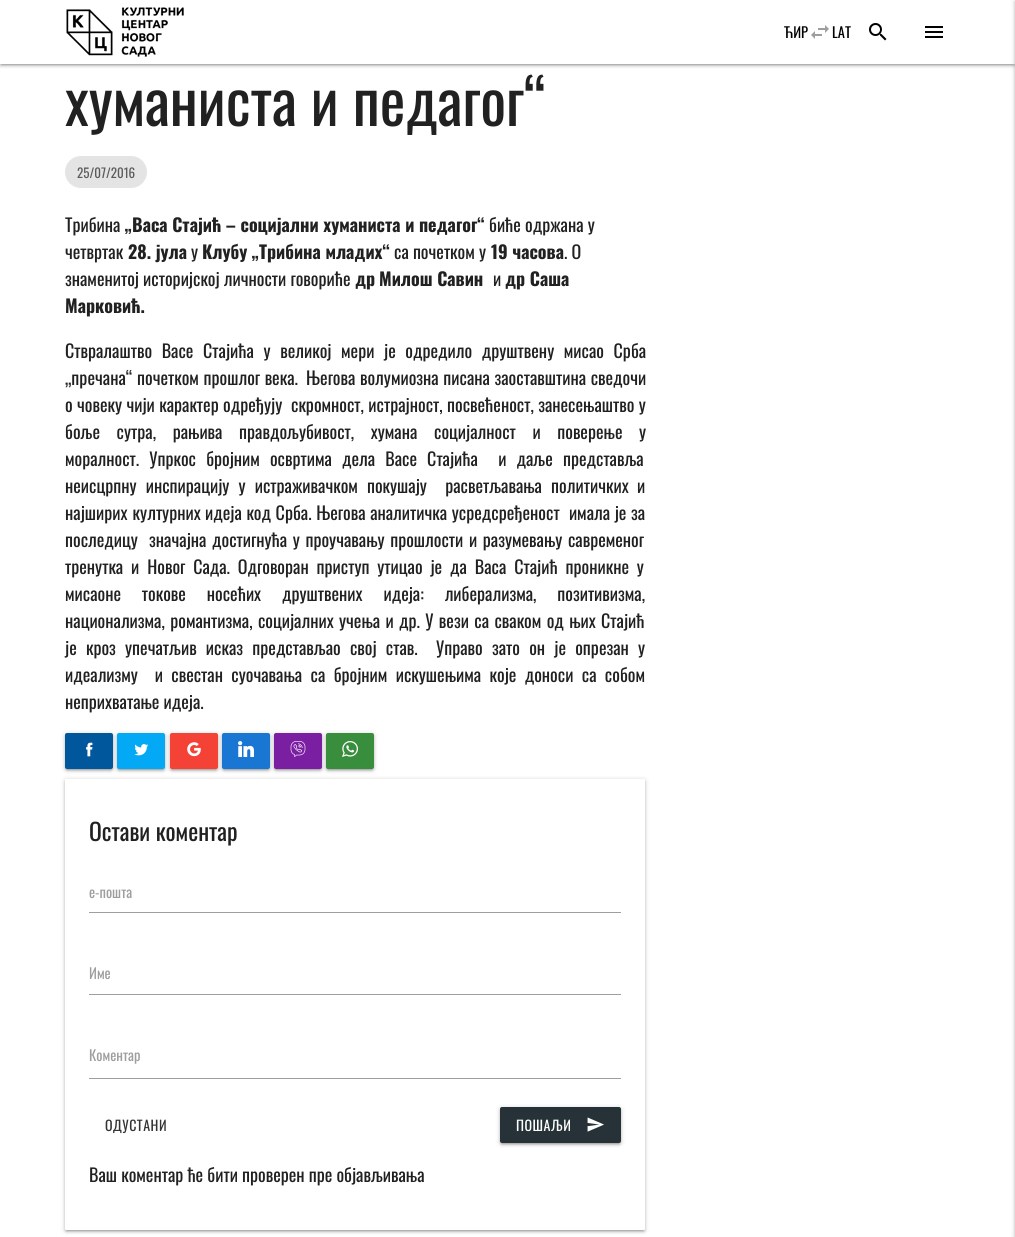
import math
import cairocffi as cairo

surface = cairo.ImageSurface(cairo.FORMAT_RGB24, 1015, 1237)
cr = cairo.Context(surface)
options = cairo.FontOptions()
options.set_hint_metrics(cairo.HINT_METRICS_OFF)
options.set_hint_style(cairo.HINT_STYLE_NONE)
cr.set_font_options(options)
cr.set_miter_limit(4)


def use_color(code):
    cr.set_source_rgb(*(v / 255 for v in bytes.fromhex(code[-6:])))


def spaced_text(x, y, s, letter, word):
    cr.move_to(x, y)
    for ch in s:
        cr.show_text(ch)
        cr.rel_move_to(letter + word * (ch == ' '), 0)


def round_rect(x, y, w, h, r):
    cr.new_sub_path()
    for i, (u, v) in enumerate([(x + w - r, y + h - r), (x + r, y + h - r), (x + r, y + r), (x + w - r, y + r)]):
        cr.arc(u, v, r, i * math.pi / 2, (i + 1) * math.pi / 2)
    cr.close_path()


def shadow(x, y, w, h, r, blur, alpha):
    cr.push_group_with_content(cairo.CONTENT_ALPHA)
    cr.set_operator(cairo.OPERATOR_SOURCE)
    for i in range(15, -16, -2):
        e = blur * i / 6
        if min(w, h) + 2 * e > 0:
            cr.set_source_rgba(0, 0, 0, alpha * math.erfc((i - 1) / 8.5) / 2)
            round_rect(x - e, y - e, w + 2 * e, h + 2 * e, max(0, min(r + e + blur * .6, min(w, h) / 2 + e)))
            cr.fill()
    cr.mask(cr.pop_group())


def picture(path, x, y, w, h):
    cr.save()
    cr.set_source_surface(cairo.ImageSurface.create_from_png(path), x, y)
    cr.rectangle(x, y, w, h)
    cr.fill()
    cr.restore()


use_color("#ffffff")
cr.paint()
use_color("#000000")
shadow(0, 1, 1015, 64, 0, 2.5, 0.2)
shadow(2, 5, 1011, 60, 0, 0.5, 0.12)
shadow(0, 2, 1015, 64, 0, 1, 0.14)
use_color("#ffffff")
cr.rectangle(0, 0, 1015, 64)
cr.fill()
picture("img1.png", 66, 7, 118, 50)
cr.select_font_face("Oswald")
cr.set_font_size(14.5)
use_color("#000000")
cr.move_to(784, 38)
cr.show_text("ЋИР")
picture("img2.png", 811, 25, 18, 14)
cr.move_to(832, 38)
cr.show_text("LAT")
picture("img3.png", 869, 23, 18, 18)
picture("img4.png", 925, 26, 18, 12)
use_color("#000000")
shadow(1015, 1, 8, 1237, 0, 2.5, 0.2)
shadow(1015, 2, 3, 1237, 0, 1, 0.14)
cr.set_font_size(61)
use_color("#212121")
cr.move_to(65, 126)
cr.show_text("хуманиста и педагог“")
use_color("#e4e4e4")
round_rect(65, 156, 82, 32, 16)
cr.fill()
cr.set_font_size(13)
use_color("#5b5b5b")
cr.move_to(77, 178)
cr.show_text("25/07/2016")
cr.set_font_size(18)
use_color("#212121")
cr.move_to(65, 232)
cr.show_text("Трибина")
cr.select_font_face("Oswald", cairo.FONT_SLANT_NORMAL, cairo.FONT_WEIGHT_BOLD)
cr.move_to(125, 232)
cr.show_text("„Васа Стајић – социјални хуманиста и педагог“")
cr.select_font_face("Oswald")
cr.move_to(489, 232)
cr.show_text("биће одржана у")
cr.move_to(65, 259)
cr.show_text("четвртак")
cr.select_font_face("Oswald", cairo.FONT_SLANT_NORMAL, cairo.FONT_WEIGHT_BOLD)
cr.move_to(128, 259)
cr.show_text("28. јула")
cr.select_font_face("Oswald")
cr.move_to(191, 259)
cr.show_text("у")
cr.select_font_face("Oswald", cairo.FONT_SLANT_NORMAL, cairo.FONT_WEIGHT_BOLD)
cr.move_to(202, 259)
cr.show_text("Клубу „Трибина младих“")
cr.select_font_face("Oswald")
cr.move_to(394, 259)
cr.show_text("са почетком у")
cr.select_font_face("Oswald", cairo.FONT_SLANT_NORMAL, cairo.FONT_WEIGHT_BOLD)
cr.move_to(491, 259)
cr.show_text("19 часова")
cr.select_font_face("Oswald")
cr.move_to(564, 259)
cr.show_text(". О")
cr.move_to(65, 286)
cr.show_text("знаменитој историјској личности говориће")
cr.select_font_face("Oswald", cairo.FONT_SLANT_NORMAL, cairo.FONT_WEIGHT_BOLD)
cr.move_to(355, 286)
cr.show_text("др")
cr.move_to(379, 286)
cr.show_text("Милош Савин")
cr.select_font_face("Oswald")
cr.move_to(493, 286)
cr.show_text("и")
cr.select_font_face("Oswald", cairo.FONT_SLANT_NORMAL, cairo.FONT_WEIGHT_BOLD)
cr.move_to(505, 286)
cr.show_text("др Саша")
cr.move_to(65, 313)
cr.show_text("Марковић.")
cr.select_font_face("Oswald")
spaced_text(65, 358, "Ствралаштво Васе Стајића у великој мери je одредило друштвену мисао Срба", 0, 5.5)
cr.move_to(65, 385)
cr.show_text("„пречана“")
spaced_text(137, 385, "почетком прошлог века.", 0, 0.5)
spaced_text(306, 385, "Његова волумиозна писана заоставштина сведочи", 0, 0.5)
spaced_text(65, 412, "о човеку чији карактер одређују  скромност, истрајност, посвећеност, занесењаштво у", 0, 0.25)
spaced_text(65, 439, "боље сутра, рањива правдољубивост, хумана социјалност и поверење у", 0, 12.5)
spaced_text(65, 466, "моралност. Упркос бројним освртима дела Васе Стајића  и даље представља", 0, 6)
spaced_text(65, 493, "неисцрпну инспирацију у истраживачком покушају  расветљавања политичких", 0, 5)
cr.move_to(637, 493)
cr.show_text("и")
spaced_text(65, 520, "најширих културних", 0, 1)
spaced_text(205, 520, "идеја код Срба. Његова аналитичка усредсређеност  имала је за", 0, 0.5)
spaced_text(65, 547, "последицу  значајна достигнућа у проучавању прошлости и разумевању савременог", 0, 1.5)
spaced_text(65, 574, "тренутка и Новог Сада. Одговоран приступ утицао је да Васа Стајић проникне у", 0, 3.75)
spaced_text(65, 601, "мисаоне токове носећих друштвених идеја: либерализма, позитивизма,", 0, 16.75)
spaced_text(65, 628, "национализма, романтизма, социјалних учења и др. У вези са сваком од њих Стајић", 0, 1.25)
spaced_text(65, 655, "је кроз упечатљив исказ представљао свој став.  Управо зато он је опрезан у", 0, 5.1)
spaced_text(65, 682, "идеализму  и свестан суочавања са бројним искушењима које доноси са собом", 0, 4.25)
cr.move_to(65, 709)
cr.show_text("неприхватање идеја.")
use_color("#000000")
shadow(65, 734, 48, 36, 2, 2.5, 0.2)
shadow(67, 738, 44, 32, 0, 0.5, 0.12)
shadow(65, 735, 48, 36, 2, 1, 0.14)
use_color("#01579b")
round_rect(65, 733, 48, 36, 2)
cr.fill()
picture("img5.png", 86, 742, 7, 15)
use_color("#000000")
shadow(117, 734, 48, 36, 2, 2.5, 0.2)
shadow(119, 738, 44, 32, 0, 0.5, 0.12)
shadow(117, 735, 48, 36, 2, 1, 0.14)
use_color("#03a9f4")
round_rect(117, 733, 48, 36, 2)
cr.fill()
picture("img6.png", 134, 744, 15, 12)
use_color("#000000")
shadow(170, 734, 48, 36, 2, 2.5, 0.2)
shadow(172, 738, 44, 32, 0, 0.5, 0.12)
shadow(170, 735, 48, 36, 2, 1, 0.14)
use_color("#f44336")
round_rect(170, 733, 48, 36, 2)
cr.fill()
picture("img7.png", 187, 742, 14, 15)
use_color("#000000")
shadow(222, 734, 48, 36, 2, 2.5, 0.2)
shadow(224, 738, 44, 32, 0, 0.5, 0.12)
shadow(222, 735, 48, 36, 2, 1, 0.14)
use_color("#1976d2")
round_rect(222, 733, 48, 36, 2)
cr.fill()
picture("img8.png", 238, 741, 16, 16)
use_color("#000000")
shadow(274, 734, 48, 36, 2, 2.5, 0.2)
shadow(276, 738, 44, 32, 0, 0.5, 0.12)
shadow(274, 735, 48, 36, 2, 1, 0.14)
use_color("#7b1fa2")
round_rect(274, 733, 48, 36, 2)
cr.fill()
picture("img9.png", 290, 741, 16, 16)
use_color("#000000")
shadow(326, 734, 48, 36, 2, 2.5, 0.2)
shadow(328, 738, 44, 32, 0, 0.5, 0.12)
shadow(326, 735, 48, 36, 2, 1, 0.14)
use_color("#388e3c")
round_rect(326, 733, 48, 36, 2)
cr.fill()
picture("img10.png", 342, 741, 16, 16)
use_color("#000000")
shadow(65, 780, 580, 451, 1, 2.5, 0.2)
shadow(67, 784, 576, 447, 0, 0.5, 0.12)
shadow(65, 781, 580, 451, 1, 1, 0.14)
use_color("#ffffff")
round_rect(65, 779, 580, 451, 1)
cr.fill()
cr.set_font_size(23.75)
use_color("#212121")
cr.move_to(89, 841)
cr.show_text("Остави коментар")
cr.set_font_size(14.5)
use_color("#9e9e9e")
cr.move_to(89, 898)
cr.show_text("е-пошта")
cr.rectangle(89, 912, 532, 1)
cr.fill()
cr.move_to(89, 979)
cr.show_text("Име")
cr.rectangle(89, 994, 532, 1)
cr.fill()
cr.move_to(89, 1061)
cr.show_text("Коментар")
cr.rectangle(89, 1078, 532, 1)
cr.fill()
cr.set_font_size(14)
use_color("#343434")
spaced_text(105, 1131, "ОДУСТАНИ", 0.5, 0)
use_color("#000000")
shadow(500, 1108, 121, 36, 2, 2.5, 0.2)
shadow(502, 1112, 117, 32, 0, 0.5, 0.12)
shadow(500, 1109, 121, 36, 2, 1, 0.14)
use_color("#263238")
round_rect(500, 1107, 121, 36, 2)
cr.fill()
use_color("#ffffff")
spaced_text(516, 1131, "ПОШАЉИ", 0.5, 0)
picture("img11.png", 587, 1117, 17, 15)
cr.set_font_size(18)
use_color("#212121")
cr.move_to(89, 1182)
cr.show_text("Ваш коментар ће бити проверен пре објављивања")
surface.write_to_png("result.png")
